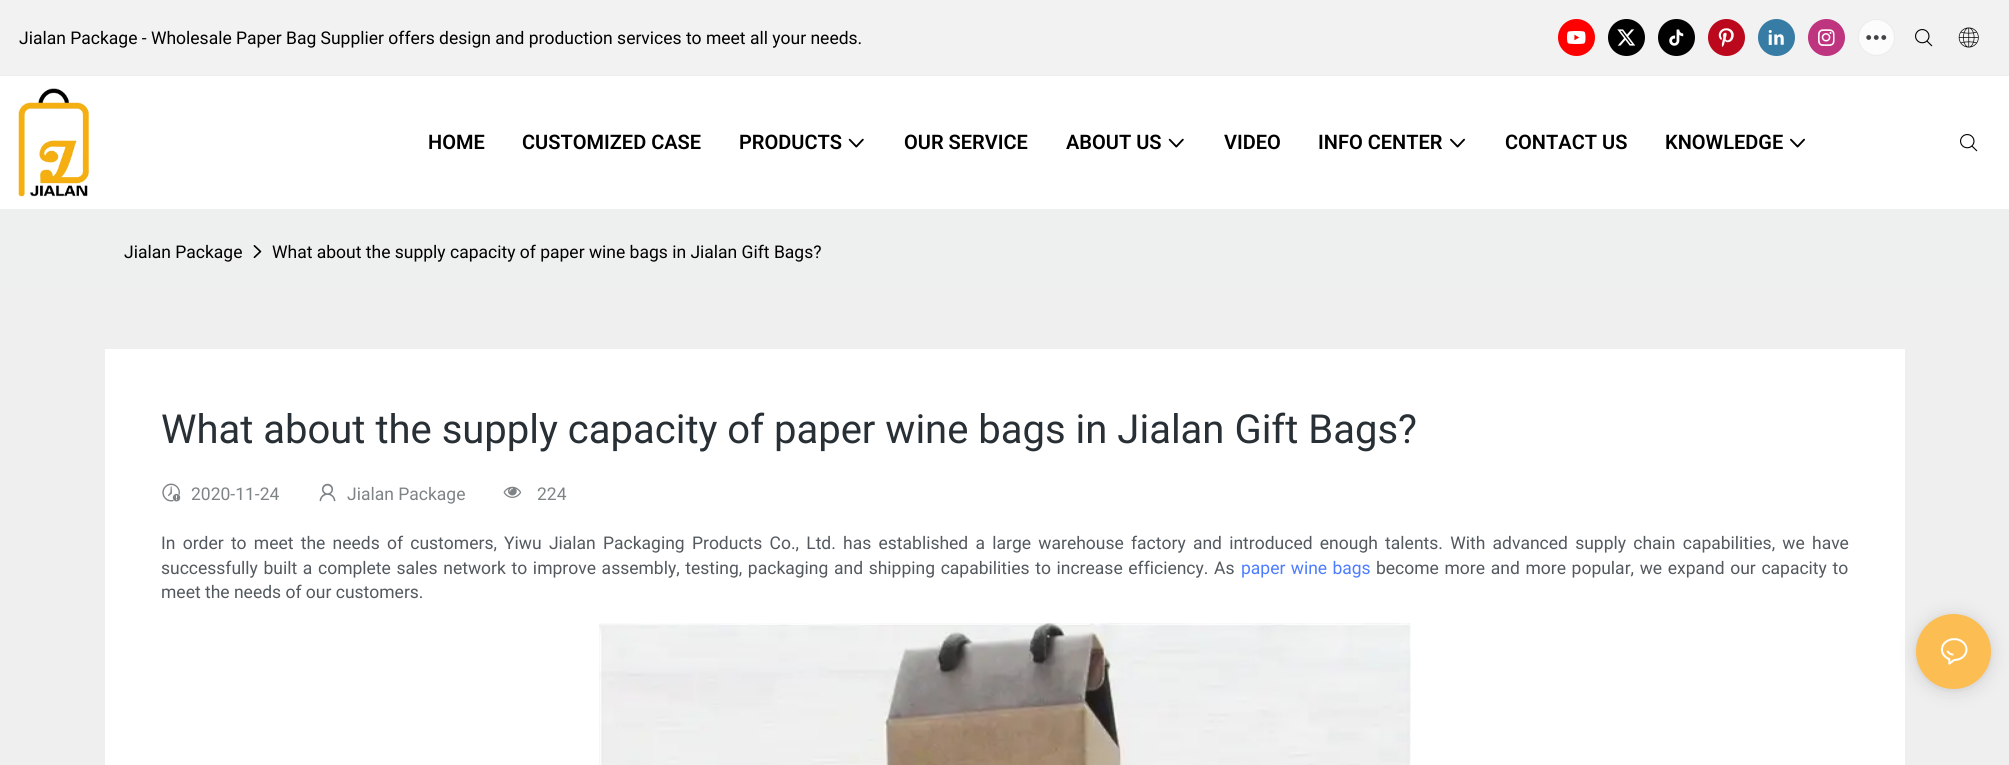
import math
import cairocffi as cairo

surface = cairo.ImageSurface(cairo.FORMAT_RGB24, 2009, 765)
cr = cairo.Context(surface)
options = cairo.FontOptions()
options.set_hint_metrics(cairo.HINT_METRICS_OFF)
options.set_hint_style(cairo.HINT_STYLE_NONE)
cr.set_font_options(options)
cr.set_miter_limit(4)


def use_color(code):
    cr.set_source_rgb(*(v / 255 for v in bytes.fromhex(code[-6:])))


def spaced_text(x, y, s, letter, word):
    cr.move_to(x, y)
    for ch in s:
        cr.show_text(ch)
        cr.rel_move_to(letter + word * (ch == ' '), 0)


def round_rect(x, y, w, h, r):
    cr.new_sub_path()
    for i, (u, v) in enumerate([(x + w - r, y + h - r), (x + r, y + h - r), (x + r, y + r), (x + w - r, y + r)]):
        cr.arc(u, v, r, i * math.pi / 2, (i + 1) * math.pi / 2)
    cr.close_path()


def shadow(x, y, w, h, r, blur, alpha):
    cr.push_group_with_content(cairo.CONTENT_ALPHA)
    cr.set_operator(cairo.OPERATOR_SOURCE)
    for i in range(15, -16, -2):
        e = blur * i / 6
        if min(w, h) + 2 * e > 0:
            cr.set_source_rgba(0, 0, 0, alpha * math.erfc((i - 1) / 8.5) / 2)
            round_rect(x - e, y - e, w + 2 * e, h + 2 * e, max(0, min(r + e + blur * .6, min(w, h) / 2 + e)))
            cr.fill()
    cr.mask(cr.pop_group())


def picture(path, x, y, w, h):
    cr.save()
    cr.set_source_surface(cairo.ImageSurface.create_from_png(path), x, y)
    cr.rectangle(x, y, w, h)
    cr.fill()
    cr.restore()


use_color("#ffffff")
cr.paint()
use_color("#f2f2f2")
cr.rectangle(0, 0, 2009, 75)
cr.fill()
use_color("#eeeeee")
cr.rectangle(0, 75, 2009, 1)
cr.fill()
cr.select_font_face("Roboto")
cr.set_font_size(17.5)
use_color("#000000")
cr.move_to(19, 44)
cr.show_text("Jialan Package - Wholesale Paper Bag Supplier offers design and production services to meet all your needs.")
use_color("#ff0000")
cr.new_path()
cr.arc(1576.5, 37.5, 18.5, 0, 2 * math.pi)
cr.fill()
picture("img1.png", 1567, 31, 19, 13)
use_color("#000000")
cr.arc(1626.5, 37.5, 18.5, 0, 2 * math.pi)
cr.fill()
picture("img2.png", 1617, 29, 19, 17)
use_color("#010101")
cr.arc(1676.5, 37.5, 18.5, 0, 2 * math.pi)
cr.fill()
picture("img3.png", 1669, 29, 15, 17)
use_color("#bc081c")
cr.arc(1726.5, 37.5, 18.5, 0, 2 * math.pi)
cr.fill()
picture("img4.png", 1718, 28, 16, 19)
use_color("#377ca5")
cr.arc(1776.5, 37.5, 18.5, 0, 2 * math.pi)
cr.fill()
picture("img5.png", 1768, 30, 16, 15)
use_color("#be347f")
cr.arc(1826.5, 37.5, 18.5, 0, 2 * math.pi)
cr.fill()
picture("img6.png", 1818, 29, 17, 17)
use_color("#fcfcfc")
cr.arc(1876.5, 37.5, 18, 0, 2 * math.pi)
cr.fill_preserve()
use_color("#ebebeb")
cr.set_line_width(1)
cr.stroke()
picture("img7.png", 1866, 35, 21, 5)
picture("img8.png", 1915, 29, 18, 18)
picture("img9.png", 1958, 27, 21, 21)
picture("img10.png", 18, 88, 71, 109)
cr.select_font_face("Roboto SemiBold")
cr.set_font_size(20)
use_color("#000000")
cr.move_to(428, 149)
cr.show_text("HOME")
cr.move_to(522, 149)
cr.show_text("CUSTOMIZED CASE")
cr.move_to(739, 149)
cr.show_text("PRODUCTS")
picture("img11.png", 848, 138, 16, 10)
cr.move_to(904, 149)
cr.show_text("OUR SERVICE")
cr.move_to(1066, 149)
cr.show_text("ABOUT US")
picture("img11.png", 1168, 138, 16, 10)
cr.move_to(1224, 149)
cr.show_text("VIDEO")
cr.move_to(1318, 149)
cr.show_text("INFO CENTER")
picture("img12.png", 1450, 138, 15, 10)
cr.move_to(1505, 149)
cr.show_text("CONTACT US")
cr.move_to(1665, 149)
cr.show_text("KNOWLEDGE")
picture("img12.png", 1790, 138, 15, 10)
picture("img13.png", 1960, 134, 18, 18)
use_color("#eeefef")
cr.rectangle(0, 209, 2009, 80)
cr.fill()
cr.select_font_face("Roboto")
cr.set_font_size(17.5)
use_color("#000000")
cr.move_to(124, 258)
cr.show_text("Jialan Package")
picture("img14.png", 253, 245, 9, 14)
cr.move_to(272, 258)
cr.show_text("What about the supply capacity of paper wine bags in Jialan Gift Bags?")
use_color("#efefef")
cr.rectangle(0, 289, 2009, 476)
cr.fill()
use_color("#ffffff")
cr.rectangle(105, 349, 1800, 416)
cr.fill()
cr.set_font_size(40)
use_color("#283036")
cr.move_to(161, 443)
cr.show_text("What about the supply capacity of paper wine bags in Jialan Gift Bags?")
picture("img15.png", 162, 483, 19, 19)
cr.set_font_size(17.5)
use_color("#7e8386")
cr.move_to(191, 500)
cr.show_text("2020-11-24")
picture("img16.png", 319, 483, 17, 19)
cr.move_to(347, 500)
cr.show_text("Jialan Package")
picture("img17.png", 503, 486, 19, 12)
cr.move_to(537, 500)
cr.show_text("224")
use_color("#53595e")
spaced_text(161, 549, "In order to meet the needs of customers, Yiwu Jialan Packaging Products Co., Ltd. has established a large warehouse factory and introduced enough talents. With advanced supply chain capabilities, we have", 0, 2.9)
spaced_text(161, 574, "successfully built a complete sales network to improve assembly, testing, packaging and shipping capabilities to increase efficiency. As", 0, 1.3)
use_color("#4d7cfe")
spaced_text(1241, 574, "paper wine bags", 0, 1)
use_color("#53595e")
spaced_text(1376, 574, "become more and more popular, we expand our capacity to", 0, 1.3)
cr.move_to(161, 598)
cr.show_text("meet the needs of our customers.")
picture("img18.png", 599, 623, 812, 142)
use_color("#000000")
shadow(1916, 616, 75, 75, 37.5, 10, 0.12)
shadow(1916, 615, 75, 75, 37.5, 2.5, 0.06)
use_color("#fcbe53")
cr.arc(1953.5, 651.5, 37.5, 0, 2 * math.pi)
cr.fill()
picture("img19.png", 1940, 638, 28, 27)
surface.write_to_png("result.png")
